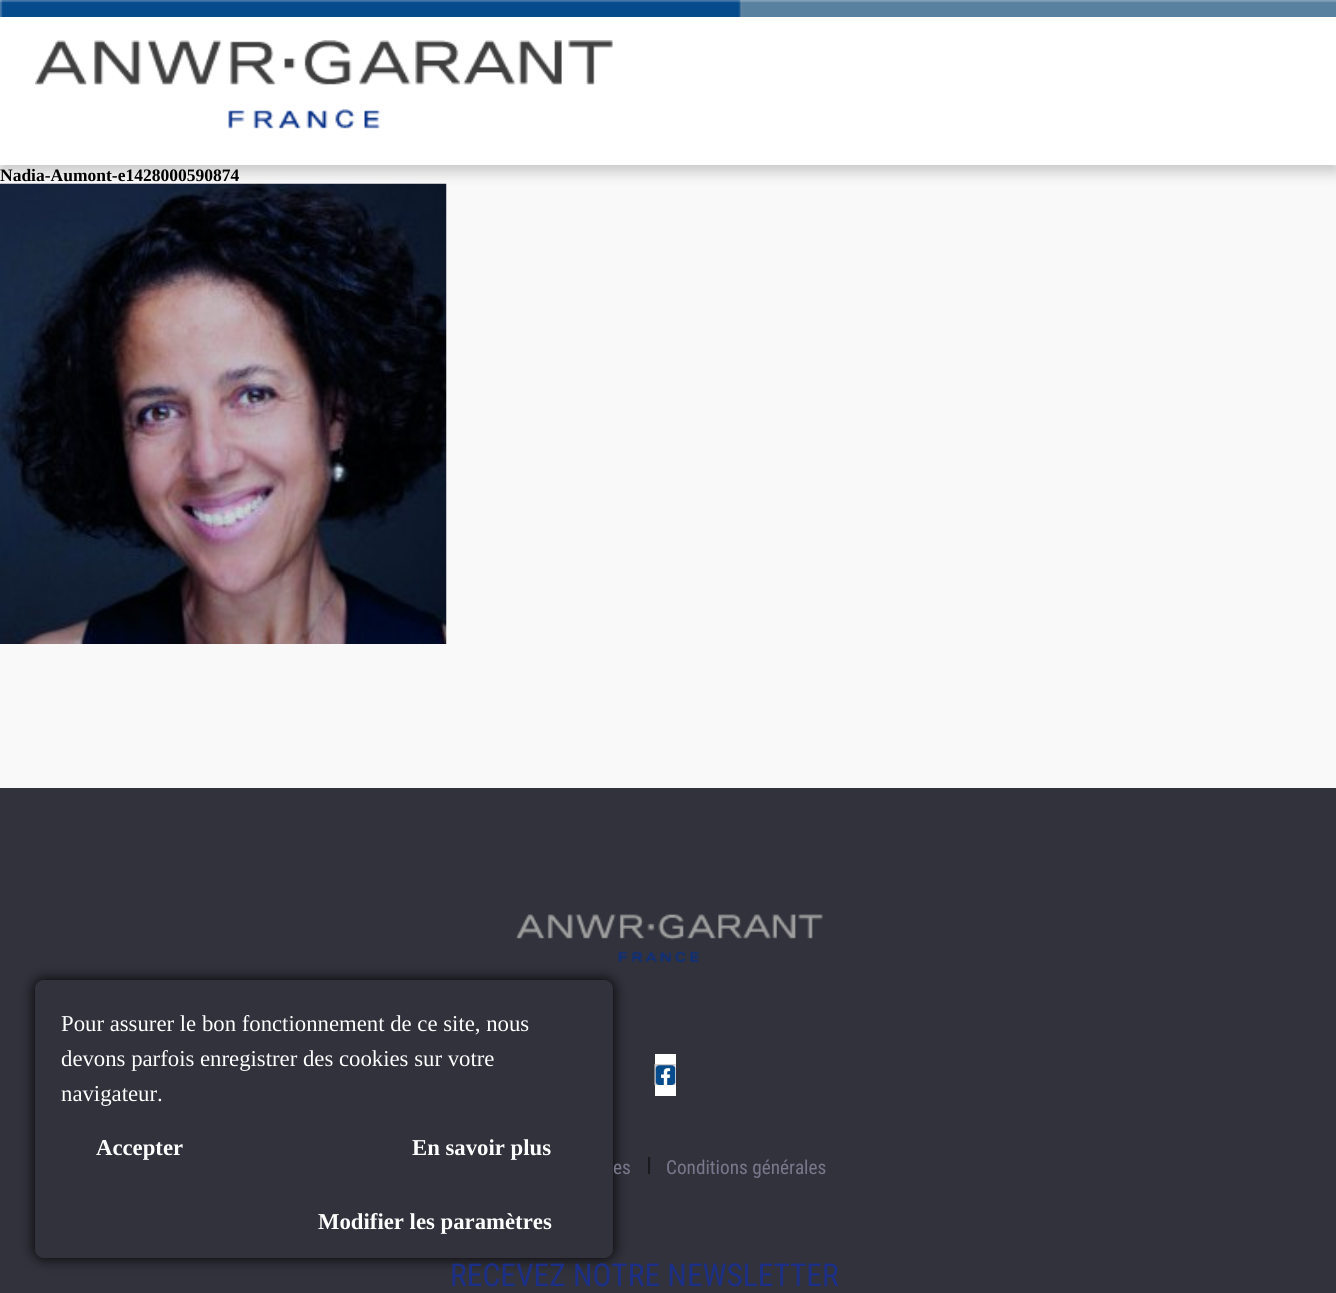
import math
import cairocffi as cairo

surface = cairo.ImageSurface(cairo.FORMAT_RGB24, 1336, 1293)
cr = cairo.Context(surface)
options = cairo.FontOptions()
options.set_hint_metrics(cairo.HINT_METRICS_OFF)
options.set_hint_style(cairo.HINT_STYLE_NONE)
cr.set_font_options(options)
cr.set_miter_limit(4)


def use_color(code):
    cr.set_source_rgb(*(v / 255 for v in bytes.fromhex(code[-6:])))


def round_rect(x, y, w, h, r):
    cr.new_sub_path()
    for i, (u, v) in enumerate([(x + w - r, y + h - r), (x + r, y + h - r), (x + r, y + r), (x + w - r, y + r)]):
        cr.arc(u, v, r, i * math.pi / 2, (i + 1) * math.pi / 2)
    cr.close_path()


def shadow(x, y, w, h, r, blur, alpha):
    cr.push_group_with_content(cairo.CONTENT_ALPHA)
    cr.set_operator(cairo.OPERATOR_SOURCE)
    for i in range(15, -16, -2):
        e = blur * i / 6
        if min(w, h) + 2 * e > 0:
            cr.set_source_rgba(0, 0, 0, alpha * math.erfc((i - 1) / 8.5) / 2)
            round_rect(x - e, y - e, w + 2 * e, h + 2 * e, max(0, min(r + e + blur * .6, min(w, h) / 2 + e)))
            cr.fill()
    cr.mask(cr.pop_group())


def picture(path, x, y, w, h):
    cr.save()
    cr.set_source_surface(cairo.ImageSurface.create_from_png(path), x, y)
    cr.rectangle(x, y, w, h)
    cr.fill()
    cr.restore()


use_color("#f9f9f9")
cr.paint()
picture("img3.png", 0, 183, 447, 461)
use_color("#000000")
shadow(0, 7, 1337, 165, 0, 7, 0.2)
use_color("#ffffff")
cr.rectangle(0, 0, 1336, 165)
cr.fill()
picture("img1.png", 35, 40, 578, 89)
picture("img2.png", 0, 0, 1336, 17)
cr.select_font_face("Liberation Serif", cairo.FONT_SLANT_NORMAL, cairo.FONT_WEIGHT_BOLD)
cr.set_font_size(17.5)
use_color("#000000")
cr.move_to(0, 181)
cr.show_text("Nadia-Aumont-e1428000590874")
use_color("#32323c")
cr.rectangle(0, 788, 1336, 505)
cr.fill()
picture("img4.png", 515, 914, 308, 49)
use_color("#000000")
shadow(35, 980, 578, 278, 9, 7, 1)
use_color("#32323c")
round_rect(35, 980, 578, 278, 9)
cr.fill()
cr.select_font_face("Liberation Serif")
cr.set_font_size(22.75)
use_color("#ffffff")
cr.move_to(61, 1031)
cr.show_text("Pour assurer le bon fonctionnement de ce site, nous")
cr.move_to(61, 1066)
cr.show_text("devons parfois enregistrer des cookies sur votre")
cr.move_to(61, 1101)
cr.show_text("navigateur.")
cr.select_font_face("Liberation Serif", cairo.FONT_SLANT_NORMAL, cairo.FONT_WEIGHT_BOLD)
cr.move_to(96, 1155)
cr.show_text("Accepter")
cr.move_to(412, 1155)
cr.show_text("En savoir plus")
cr.move_to(318, 1229)
cr.show_text("Modifier les paramètres")
cr.rectangle(655, 1054, 21, 42)
cr.fill()
picture("img5.png", 654, 1064, 22, 21)
cr.select_font_face("Roboto Condensed")
cr.set_font_size(19.25)
use_color("#78788c")
cr.move_to(613, 1174)
cr.show_text("es")
cr.set_font_size(24)
use_color("#19191e")
cr.move_to(646, 1174)
cr.show_text("I")
cr.set_font_size(19.25)
use_color("#78788c")
cr.move_to(666, 1174)
cr.show_text("Conditions générales")
cr.set_font_size(31.5)
use_color("#1b2f87")
cr.move_to(450, 1286)
cr.show_text("RECEVEZ NOTRE NEWSLETTER")
surface.write_to_png("result.png")
